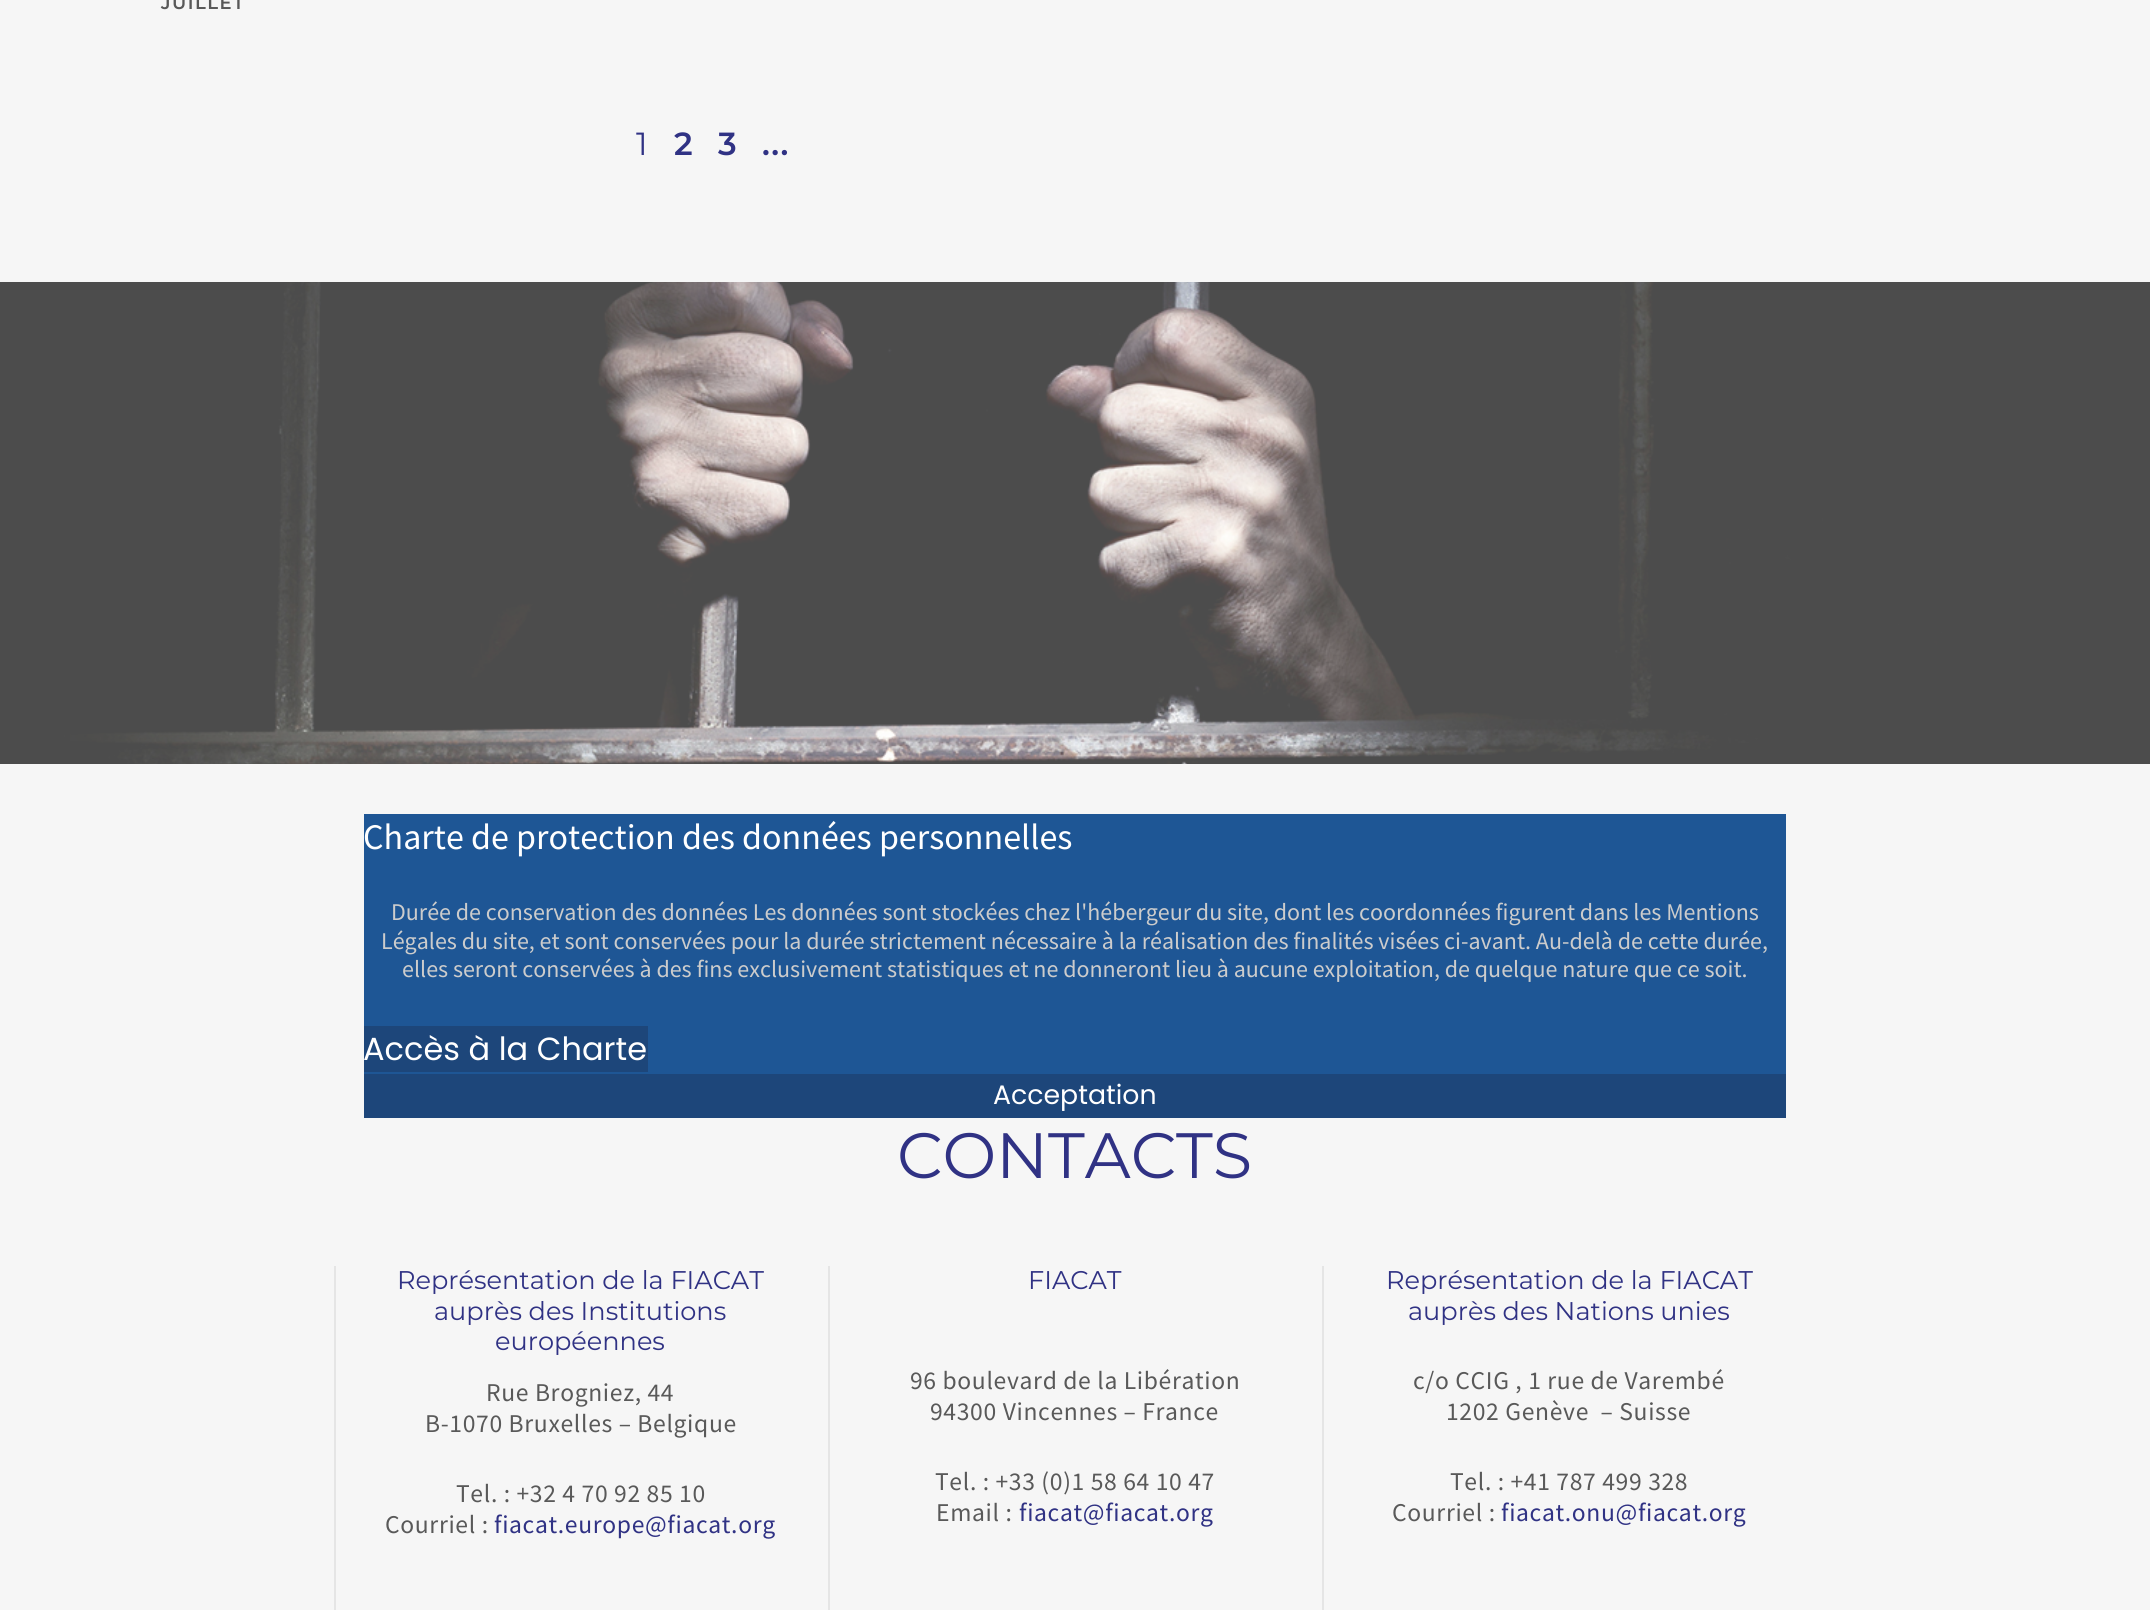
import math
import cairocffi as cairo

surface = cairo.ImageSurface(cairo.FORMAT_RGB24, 2150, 1610)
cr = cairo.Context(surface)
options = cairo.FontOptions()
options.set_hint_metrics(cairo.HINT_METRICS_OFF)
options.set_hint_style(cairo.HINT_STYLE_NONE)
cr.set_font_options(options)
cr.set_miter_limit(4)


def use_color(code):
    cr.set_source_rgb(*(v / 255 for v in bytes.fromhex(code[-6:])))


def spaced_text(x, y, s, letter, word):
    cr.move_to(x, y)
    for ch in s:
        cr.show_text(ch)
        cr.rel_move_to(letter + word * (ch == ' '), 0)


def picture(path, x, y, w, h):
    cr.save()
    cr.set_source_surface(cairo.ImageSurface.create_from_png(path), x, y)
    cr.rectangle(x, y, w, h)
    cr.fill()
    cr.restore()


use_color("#ffffff")
cr.paint()
use_color("#f6f6f6")
cr.rectangle(0, 0, 2150, 282)
cr.fill()
cr.select_font_face("Montserrat SemiBold")
cr.set_font_size(18)
use_color("#595959")
spaced_text(161, 9, "JUILLET", 1.5, 0)
cr.select_font_face("Montserrat")
cr.set_font_size(32)
use_color("#303284")
spaced_text(636, 155, "1", 1.5, 0)
cr.select_font_face("Montserrat SemiBold")
spaced_text(674, 155, "2", 1.5, 0)
spaced_text(718, 155, "3", 1.5, 0)
spaced_text(762, 155, "...", 1.5, 0)
picture("img1.png", 0, 282, 2150, 482)
use_color("#f6f6f6")
cr.rectangle(0, 764, 2150, 846)
cr.fill()
use_color("#1e5695")
cr.rectangle(364, 814, 1422, 260)
cr.fill()
cr.select_font_face("Source Sans Pro")
cr.set_font_size(36)
use_color("#ffffff")
cr.move_to(363, 849)
cr.show_text("Charte de protection des données personnelles")
cr.set_font_size(24)
use_color("#cccccc")
cr.move_to(391, 920)
cr.show_text("Durée de conservation des données Les données sont stockées chez l'hébergeur du site, dont les coordonnées figurent dans les Mentions")
cr.move_to(381, 949)
cr.show_text("Légales du site, et sont conservées pour la durée strictement nécessaire à la réalisation des finalités visées ci-avant. Au-delà de cette durée,")
cr.move_to(402, 977)
cr.show_text("elles seront conservées à des fins exclusivement statistiques et ne donneront lieu à aucune exploitation, de quelque nature que ce soit.")
use_color("#1d467a")
cr.rectangle(364, 1026, 284, 46)
cr.fill()
cr.select_font_face("Poppins")
cr.set_font_size(32)
use_color("#ffffff")
cr.move_to(363, 1060)
cr.show_text("Accès à la Charte")
use_color("#1d467a")
cr.rectangle(364, 1074, 1422, 44)
cr.fill()
cr.set_font_size(26.75)
use_color("#ffffff")
cr.move_to(993, 1104)
cr.show_text("Acceptation")
cr.select_font_face("Montserrat")
cr.set_font_size(64)
use_color("#303284")
cr.move_to(897, 1178)
cr.show_text("CONTACTS")
use_color("#e5e5e5")
cr.rectangle(334, 1266, 2, 344)
cr.fill()
cr.set_font_size(25.6)
use_color("#303284")
cr.move_to(397, 1289)
cr.show_text("Représentation de la FIACAT")
cr.move_to(434, 1320)
cr.show_text("auprès des Institutions")
cr.move_to(495, 1350)
cr.show_text("européennes")
cr.select_font_face("Source Sans Pro")
use_color("#595959")
spaced_text(486, 1401, "Rue Brogniez, 44", 0.65, 0)
spaced_text(425, 1432, "B-1070 Bruxelles – Belgique", 0.65, 0)
spaced_text(456, 1502, "Tel. : +32 4 70 92 85 10", 0.65, 0)
spaced_text(385, 1533, "Courriel :", 0.65, 0)
use_color("#303284")
spaced_text(494, 1533, "fiacat.europe@fiacat.org", 0.65, 0)
use_color("#e5e5e5")
cr.rectangle(828, 1266, 2, 344)
cr.fill()
cr.select_font_face("Montserrat")
use_color("#303284")
cr.move_to(1028, 1289)
cr.show_text("FIACAT")
cr.select_font_face("Source Sans Pro")
use_color("#595959")
spaced_text(910, 1389, "96 boulevard de la Libération", 0.65, 0)
spaced_text(930, 1420, "94300 Vincennes – France", 0.65, 0)
spaced_text(935, 1490, "Tel. : +33 (0)1 58 64 10 47", 0.65, 0)
spaced_text(936, 1521, "Email :", 0.65, 0)
use_color("#303284")
spaced_text(1019, 1521, "fiacat@fiacat.org", 0.65, 0)
use_color("#e5e5e5")
cr.rectangle(1322, 1266, 2, 344)
cr.fill()
cr.select_font_face("Montserrat")
use_color("#303284")
cr.move_to(1386, 1289)
cr.show_text("Représentation de la FIACAT")
cr.move_to(1408, 1320)
cr.show_text("auprès des Nations unies")
cr.select_font_face("Source Sans Pro")
use_color("#595959")
spaced_text(1413, 1389, "c/o CCIG , 1 rue de Varembé", 0.65, 0)
spaced_text(1446, 1420, "1202 Genève  – Suisse", 0.65, 0)
spaced_text(1450, 1490, "Tel. : +41 787 499 328", 0.65, 0)
spaced_text(1392, 1521, "Courriel :", 0.65, 0)
use_color("#303284")
spaced_text(1501, 1521, "fiacat.onu@fiacat.org", 0.65, 0)
surface.write_to_png("result.png")
